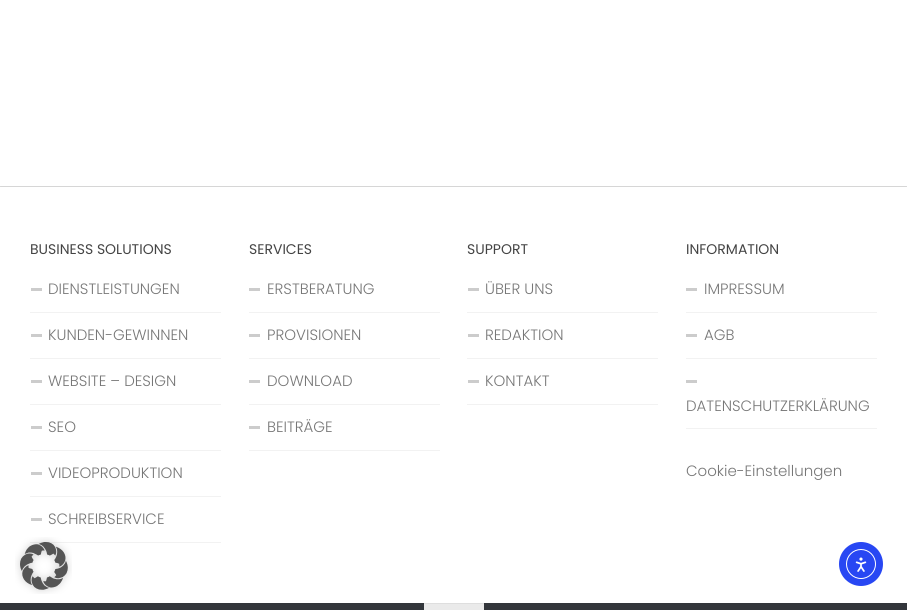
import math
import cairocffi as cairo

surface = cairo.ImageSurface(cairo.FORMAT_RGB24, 907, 610)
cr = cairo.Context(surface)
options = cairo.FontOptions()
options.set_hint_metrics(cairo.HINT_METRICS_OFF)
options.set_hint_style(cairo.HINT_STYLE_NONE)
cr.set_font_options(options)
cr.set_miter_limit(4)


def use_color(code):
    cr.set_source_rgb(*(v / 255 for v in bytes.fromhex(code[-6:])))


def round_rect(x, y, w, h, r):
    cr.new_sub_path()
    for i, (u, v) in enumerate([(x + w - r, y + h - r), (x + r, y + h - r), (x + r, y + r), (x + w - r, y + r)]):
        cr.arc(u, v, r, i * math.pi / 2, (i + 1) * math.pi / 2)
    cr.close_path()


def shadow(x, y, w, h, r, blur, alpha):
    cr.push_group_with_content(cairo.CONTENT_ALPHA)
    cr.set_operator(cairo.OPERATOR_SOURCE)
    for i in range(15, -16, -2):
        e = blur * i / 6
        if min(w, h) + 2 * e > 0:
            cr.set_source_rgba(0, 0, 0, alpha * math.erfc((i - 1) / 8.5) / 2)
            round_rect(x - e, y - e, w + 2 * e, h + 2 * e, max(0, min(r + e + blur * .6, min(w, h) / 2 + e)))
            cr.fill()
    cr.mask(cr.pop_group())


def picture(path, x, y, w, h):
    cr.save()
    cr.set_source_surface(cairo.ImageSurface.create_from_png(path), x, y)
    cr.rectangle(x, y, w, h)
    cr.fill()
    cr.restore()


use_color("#eaeaea")
cr.paint()
use_color("#000000")
shadow(0, -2, 907, 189, 0, 0.5, 0.1)
use_color("#ffffff")
cr.rectangle(0, 0, 907, 186)
cr.fill()
cr.rectangle(0, 187, 907, 416)
cr.fill()
cr.select_font_face("Poppins")
cr.set_font_size(14)
use_color("#444444")
cr.move_to(30, 254)
cr.show_text("BUSINESS SOLUTIONS")
use_color("#f2f2f2")
cr.rectangle(30, 312, 191, 1)
cr.fill()
use_color("#cccccc")
cr.rectangle(31, 288, 11, 3)
cr.fill()
cr.select_font_face("Poppins Light")
cr.set_font_size(15)
use_color("#777777")
cr.move_to(48, 294)
cr.show_text("DIENSTLEISTUNGEN")
use_color("#f2f2f2")
cr.rectangle(30, 358, 191, 1)
cr.fill()
use_color("#cccccc")
cr.rectangle(31, 334, 11, 3)
cr.fill()
use_color("#777777")
cr.move_to(48, 340)
cr.show_text("KUNDEN-GEWINNEN")
use_color("#f2f2f2")
cr.rectangle(30, 404, 191, 1)
cr.fill()
use_color("#cccccc")
cr.rectangle(31, 380, 11, 3)
cr.fill()
use_color("#777777")
cr.move_to(48, 386)
cr.show_text("WEBSITE – DESIGN")
use_color("#f2f2f2")
cr.rectangle(30, 450, 191, 1)
cr.fill()
use_color("#cccccc")
cr.rectangle(31, 426, 11, 3)
cr.fill()
use_color("#777777")
cr.move_to(48, 432)
cr.show_text("SEO")
use_color("#f2f2f2")
cr.rectangle(30, 496, 191, 1)
cr.fill()
use_color("#cccccc")
cr.rectangle(31, 472, 11, 3)
cr.fill()
use_color("#777777")
cr.move_to(48, 478)
cr.show_text("VIDEOPRODUKTION")
use_color("#f2f2f2")
cr.rectangle(30, 542, 191, 1)
cr.fill()
use_color("#cccccc")
cr.rectangle(31, 518, 11, 3)
cr.fill()
use_color("#777777")
cr.move_to(48, 524)
cr.show_text("SCHREIBSERVICE")
cr.select_font_face("Poppins")
cr.set_font_size(14)
use_color("#444444")
cr.move_to(249, 254)
cr.show_text("SERVICES")
use_color("#f2f2f2")
cr.rectangle(249, 312, 191, 1)
cr.fill()
use_color("#cccccc")
cr.rectangle(249, 288, 11, 3)
cr.fill()
cr.select_font_face("Poppins Light")
cr.set_font_size(15)
use_color("#777777")
cr.move_to(267, 294)
cr.show_text("ERSTBERATUNG")
use_color("#f2f2f2")
cr.rectangle(249, 358, 191, 1)
cr.fill()
use_color("#cccccc")
cr.rectangle(249, 334, 11, 3)
cr.fill()
use_color("#777777")
cr.move_to(267, 340)
cr.show_text("PROVISIONEN")
use_color("#f2f2f2")
cr.rectangle(249, 404, 191, 1)
cr.fill()
use_color("#cccccc")
cr.rectangle(249, 380, 11, 3)
cr.fill()
use_color("#777777")
cr.move_to(267, 386)
cr.show_text("DOWNLOAD")
use_color("#f2f2f2")
cr.rectangle(249, 450, 191, 1)
cr.fill()
use_color("#cccccc")
cr.rectangle(249, 426, 11, 3)
cr.fill()
use_color("#777777")
cr.move_to(267, 432)
cr.show_text("BEITRÄGE")
cr.select_font_face("Poppins")
cr.set_font_size(14)
use_color("#444444")
cr.move_to(467, 254)
cr.show_text("SUPPORT")
use_color("#f2f2f2")
cr.rectangle(467, 312, 191, 1)
cr.fill()
use_color("#cccccc")
cr.rectangle(468, 288, 11, 3)
cr.fill()
cr.select_font_face("Poppins Light")
cr.set_font_size(15)
use_color("#777777")
cr.move_to(485, 294)
cr.show_text("ÜBER UNS")
use_color("#f2f2f2")
cr.rectangle(467, 358, 191, 1)
cr.fill()
use_color("#cccccc")
cr.rectangle(468, 334, 11, 3)
cr.fill()
use_color("#777777")
cr.move_to(485, 340)
cr.show_text("REDAKTION")
use_color("#f2f2f2")
cr.rectangle(467, 404, 191, 1)
cr.fill()
use_color("#cccccc")
cr.rectangle(468, 380, 11, 3)
cr.fill()
use_color("#777777")
cr.move_to(485, 386)
cr.show_text("KONTAKT")
cr.select_font_face("Poppins")
cr.set_font_size(14)
use_color("#444444")
cr.move_to(686, 254)
cr.show_text("INFORMATION")
use_color("#f2f2f2")
cr.rectangle(686, 312, 191, 1)
cr.fill()
use_color("#cccccc")
cr.rectangle(686, 288, 11, 3)
cr.fill()
cr.select_font_face("Poppins Light")
cr.set_font_size(15)
use_color("#777777")
cr.move_to(704, 294)
cr.show_text("IMPRESSUM")
use_color("#f2f2f2")
cr.rectangle(686, 358, 191, 1)
cr.fill()
use_color("#cccccc")
cr.rectangle(686, 334, 11, 3)
cr.fill()
use_color("#777777")
cr.move_to(704, 340)
cr.show_text("AGB")
use_color("#f2f2f2")
cr.rectangle(686, 428, 191, 1)
cr.fill()
use_color("#cccccc")
cr.rectangle(686, 380, 11, 3)
cr.fill()
use_color("#777777")
cr.move_to(686, 411)
cr.show_text("DATENSCHUTZERKLÄRUNG")
cr.move_to(686, 476)
cr.show_text("Cookie-Einstellungen")
use_color("#33363b")
cr.rectangle(0, 603, 907, 7)
cr.fill()
use_color("#eaeaea")
cr.rectangle(424, 604, 60, 6)
cr.fill()
use_color("#dedede")
cr.rectangle(424, 603, 60, 1)
cr.fill()
picture("img1.png", 15, 537, 57, 57)
use_color("#2847f3")
cr.arc(861, 564, 22, 0, 2 * math.pi)
cr.fill()
cr.arc(861, 564, 14.5, 0, 2 * math.pi)
use_color("#ffffff")
cr.set_line_width(1)
cr.stroke()
picture("img2.png", 855, 557, 12, 15)
surface.write_to_png("result.png")
